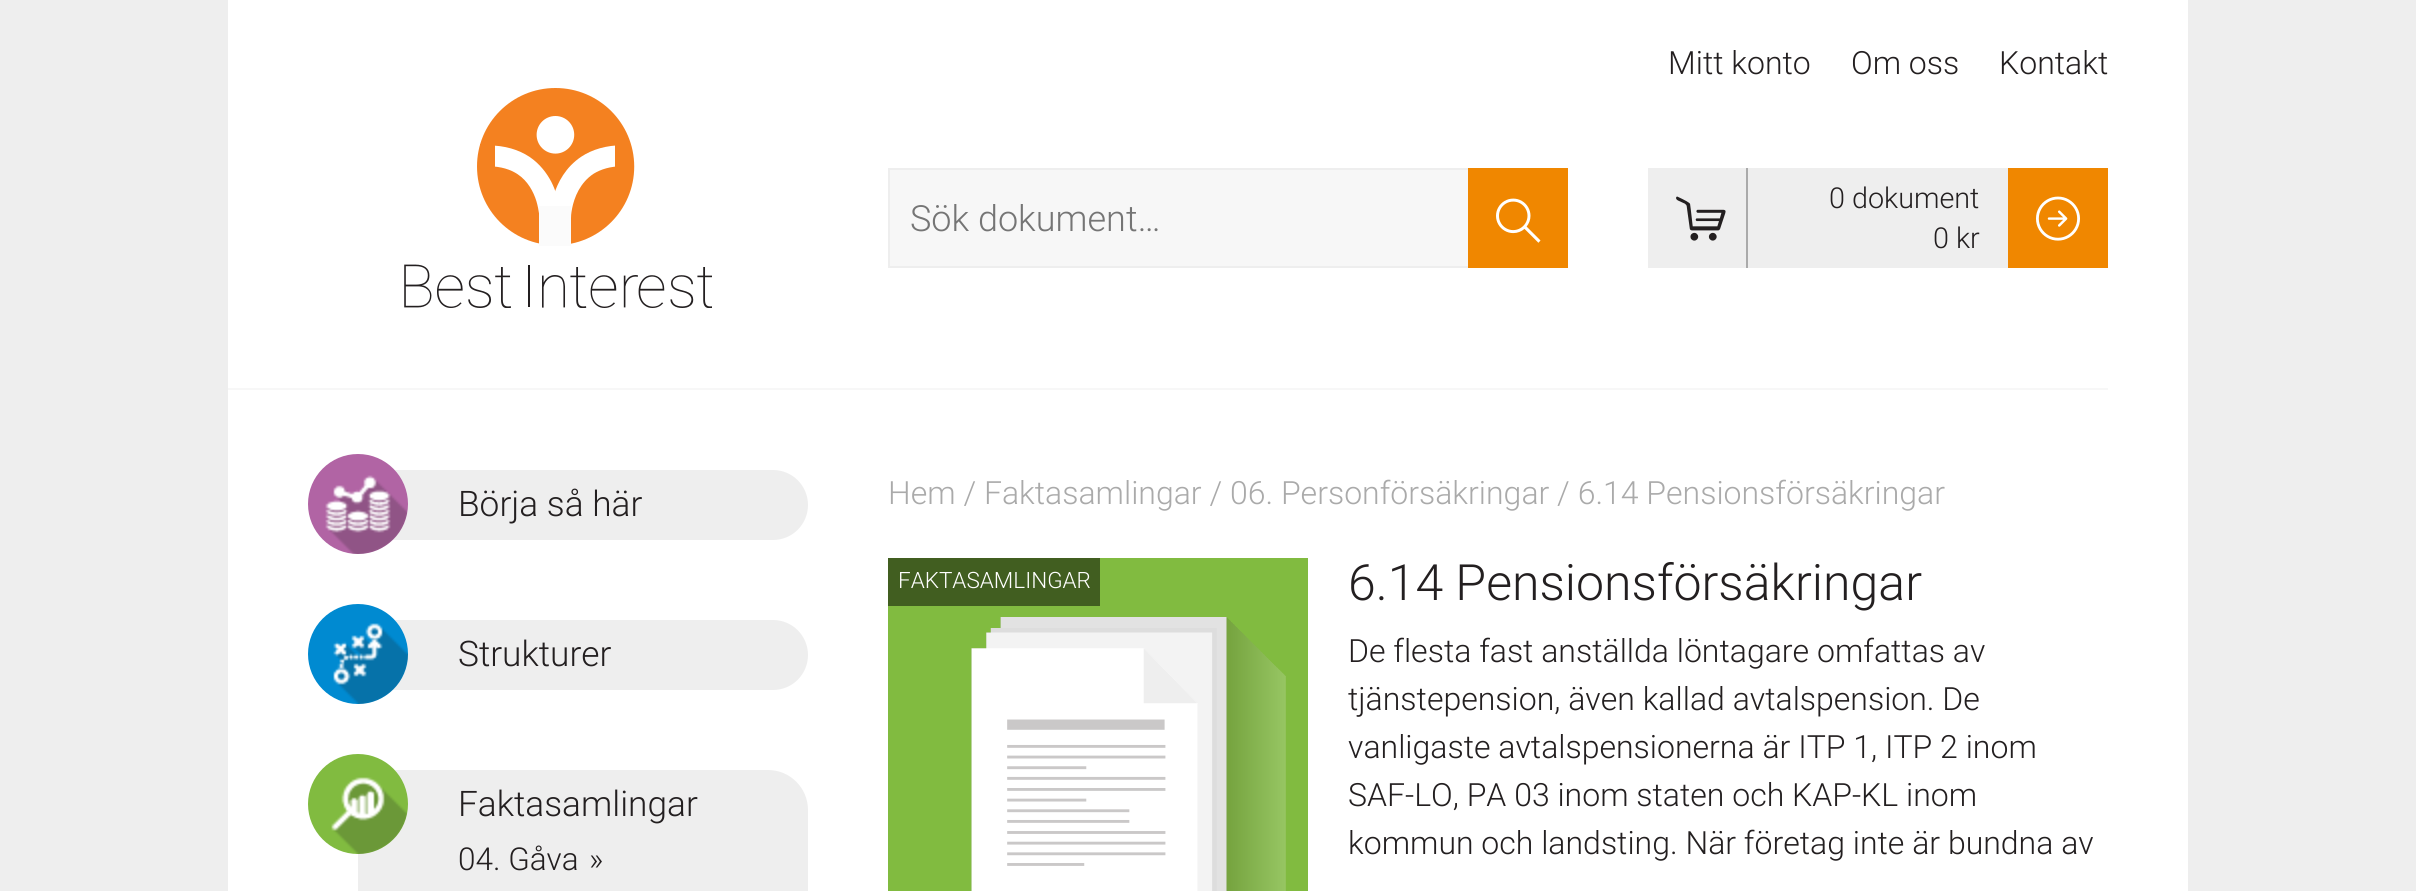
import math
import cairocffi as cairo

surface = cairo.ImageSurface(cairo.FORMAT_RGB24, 2416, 891)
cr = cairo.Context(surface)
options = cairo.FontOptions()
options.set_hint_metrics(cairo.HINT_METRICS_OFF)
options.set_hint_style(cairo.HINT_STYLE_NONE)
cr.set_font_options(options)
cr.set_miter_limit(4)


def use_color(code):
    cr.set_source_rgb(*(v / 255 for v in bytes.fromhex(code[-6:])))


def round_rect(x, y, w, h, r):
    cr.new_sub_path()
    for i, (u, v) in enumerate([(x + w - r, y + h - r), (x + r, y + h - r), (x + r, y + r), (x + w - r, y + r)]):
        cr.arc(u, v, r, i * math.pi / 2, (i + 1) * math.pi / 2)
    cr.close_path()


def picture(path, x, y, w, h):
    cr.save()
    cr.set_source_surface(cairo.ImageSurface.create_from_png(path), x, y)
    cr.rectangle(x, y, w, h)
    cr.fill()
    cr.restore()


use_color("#eeeeee")
cr.paint()
use_color("#ffffff")
cr.rectangle(228, 0, 1960, 891)
cr.fill()
cr.select_font_face("Roboto Light")
cr.set_font_size(32)
use_color("#231f20")
cr.move_to(1668, 74)
cr.show_text("Mitt konto")
cr.move_to(1851, 74)
cr.show_text("Om oss")
cr.move_to(1999, 74)
cr.show_text("Kontakt")
picture("img1.png", 404, 88, 308, 220)
use_color("#f7f7f7")
cr.rectangle(890, 170, 578, 96)
cr.fill()
use_color("#eeeeee")
cr.rectangle(888, 168, 580, 2)
cr.fill()
cr.rectangle(888, 266, 580, 2)
cr.fill()
cr.rectangle(888, 168, 2, 100)
cr.fill()
cr.set_font_size(36)
use_color("#757575")
cr.move_to(910, 231)
cr.show_text("Sök dokument…")
use_color("#f08700")
cr.rectangle(1468, 168, 100, 100)
cr.fill()
picture("img2.png", 1496, 198, 45, 45)
use_color("#eeeeee")
cr.rectangle(1648, 168, 98, 100)
cr.fill()
use_color("#aaaaaa")
cr.rectangle(1746, 168, 2, 100)
cr.fill()
picture("img3.png", 1676, 196, 50, 45)
use_color("#eeeeee")
cr.rectangle(1748, 168, 260, 100)
cr.fill()
cr.set_font_size(28.75)
use_color("#231f20")
cr.move_to(1829, 208)
cr.show_text("0 dokument")
cr.move_to(1933, 248)
cr.show_text("0 kr")
use_color("#f08700")
cr.rectangle(2008, 168, 100, 100)
cr.fill()
picture("img4.png", 2036, 196, 44, 45)
use_color("#f7f7f7")
cr.rectangle(228, 388, 1880, 2)
cr.fill()
use_color("#eeeeee")
round_rect(358, 470, 450, 70, 35)
cr.fill()
use_color("#b164a4")
cr.arc(358, 504, 50, 0, 2 * math.pi)
cr.fill()
picture("img5.png", 325, 475, 82, 79)
cr.set_font_size(35.25)
use_color("#231f20")
cr.move_to(458, 516)
cr.show_text("Börja så här")
use_color("#eeeeee")
round_rect(358, 620, 450, 70, 35)
cr.fill()
use_color("#008ad1")
cr.arc(358, 654, 50, 0, 2 * math.pi)
cr.fill()
picture("img6.png", 333, 623, 75, 81)
use_color("#231f20")
cr.move_to(458, 666)
cr.show_text("Strukturer")
use_color("#eeeeee")
round_rect(358, 770, 450, 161, 40)
cr.fill()
use_color("#81bb40")
cr.arc(358, 804, 50, 0, 2 * math.pi)
cr.fill()
picture("img7.png", 331, 777, 76, 77)
use_color("#231f20")
cr.move_to(458, 816)
cr.show_text("Faktasamlingar")
cr.set_font_size(31.5)
cr.move_to(458, 870)
cr.show_text("04. Gåva")
cr.move_to(589, 870)
cr.show_text("»")
cr.set_font_size(32)
use_color("#aaaaaa")
cr.move_to(888, 504)
cr.show_text("Hem / Faktasamlingar / 06. Personförsäkringar / 6.14 Pensionsförsäkringar")
use_color("#81bb40")
cr.rectangle(888, 558, 420, 333)
cr.fill()
picture("img8.png", 971, 617, 315, 274)
use_color("#415e20")
cr.rectangle(888, 558, 212, 48)
cr.fill()
cr.set_font_size(22.5)
use_color("#ffffff")
cr.move_to(898, 588)
cr.show_text("FAKTASAMLINGAR")
cr.set_font_size(50)
use_color("#231f20")
cr.move_to(1348, 600)
cr.show_text("6.14 Pensionsförsäkringar")
cr.set_font_size(32)
cr.move_to(1348, 662)
cr.show_text("De flesta fast anställda löntagare omfattas av")
cr.move_to(1348, 710)
cr.show_text("tjänstepension, även kallad avtalspension. De")
cr.move_to(1348, 758)
cr.show_text("vanligaste avtalspensionerna är ITP 1, ITP 2 inom")
cr.move_to(1348, 806)
cr.show_text("SAF-LO, PA 03 inom staten och KAP-KL inom")
cr.move_to(1348, 854)
cr.show_text("kommun och landsting. När företag inte är bundna av")
surface.write_to_png("result.png")
